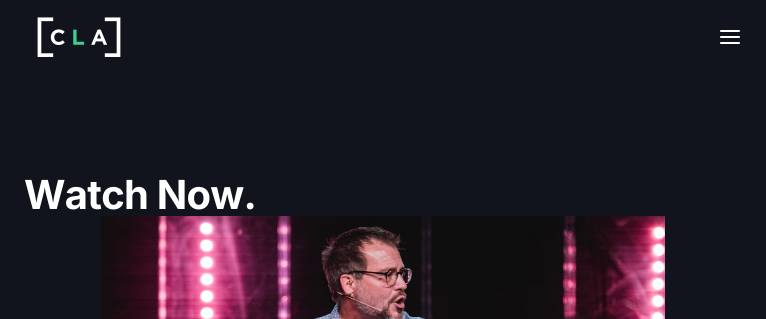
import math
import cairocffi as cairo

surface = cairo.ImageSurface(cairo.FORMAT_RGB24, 766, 319)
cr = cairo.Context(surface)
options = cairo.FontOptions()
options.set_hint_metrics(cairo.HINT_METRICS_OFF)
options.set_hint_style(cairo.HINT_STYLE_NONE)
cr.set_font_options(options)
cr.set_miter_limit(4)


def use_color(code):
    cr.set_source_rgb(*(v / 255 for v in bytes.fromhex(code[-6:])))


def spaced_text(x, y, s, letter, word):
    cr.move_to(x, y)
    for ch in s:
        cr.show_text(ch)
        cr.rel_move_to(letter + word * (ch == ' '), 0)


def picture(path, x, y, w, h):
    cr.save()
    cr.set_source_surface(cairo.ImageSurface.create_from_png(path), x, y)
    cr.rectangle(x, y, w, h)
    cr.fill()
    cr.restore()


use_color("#12141d")
cr.paint()
picture("img1.png", 37, 17, 84, 40)
cr.new_path()
cr.move_to(721, 37)
cr.line_to(739, 37)
cr.move_to(721, 31)
cr.line_to(739, 31)
cr.move_to(721, 43)
cr.line_to(739, 43)
use_color("#ffffff")
cr.set_line_cap(cairo.LINE_CAP_ROUND)
cr.set_line_join(cairo.LINE_JOIN_ROUND)
cr.stroke()
cr.select_font_face("Inter", cairo.FONT_SLANT_NORMAL, cairo.FONT_WEIGHT_BOLD)
cr.set_font_size(40)
spaced_text(24, 209, "Watch Now.", -0.75, 0)
picture("img2.png", 101, 216, 564, 103)
surface.write_to_png("result.png")
